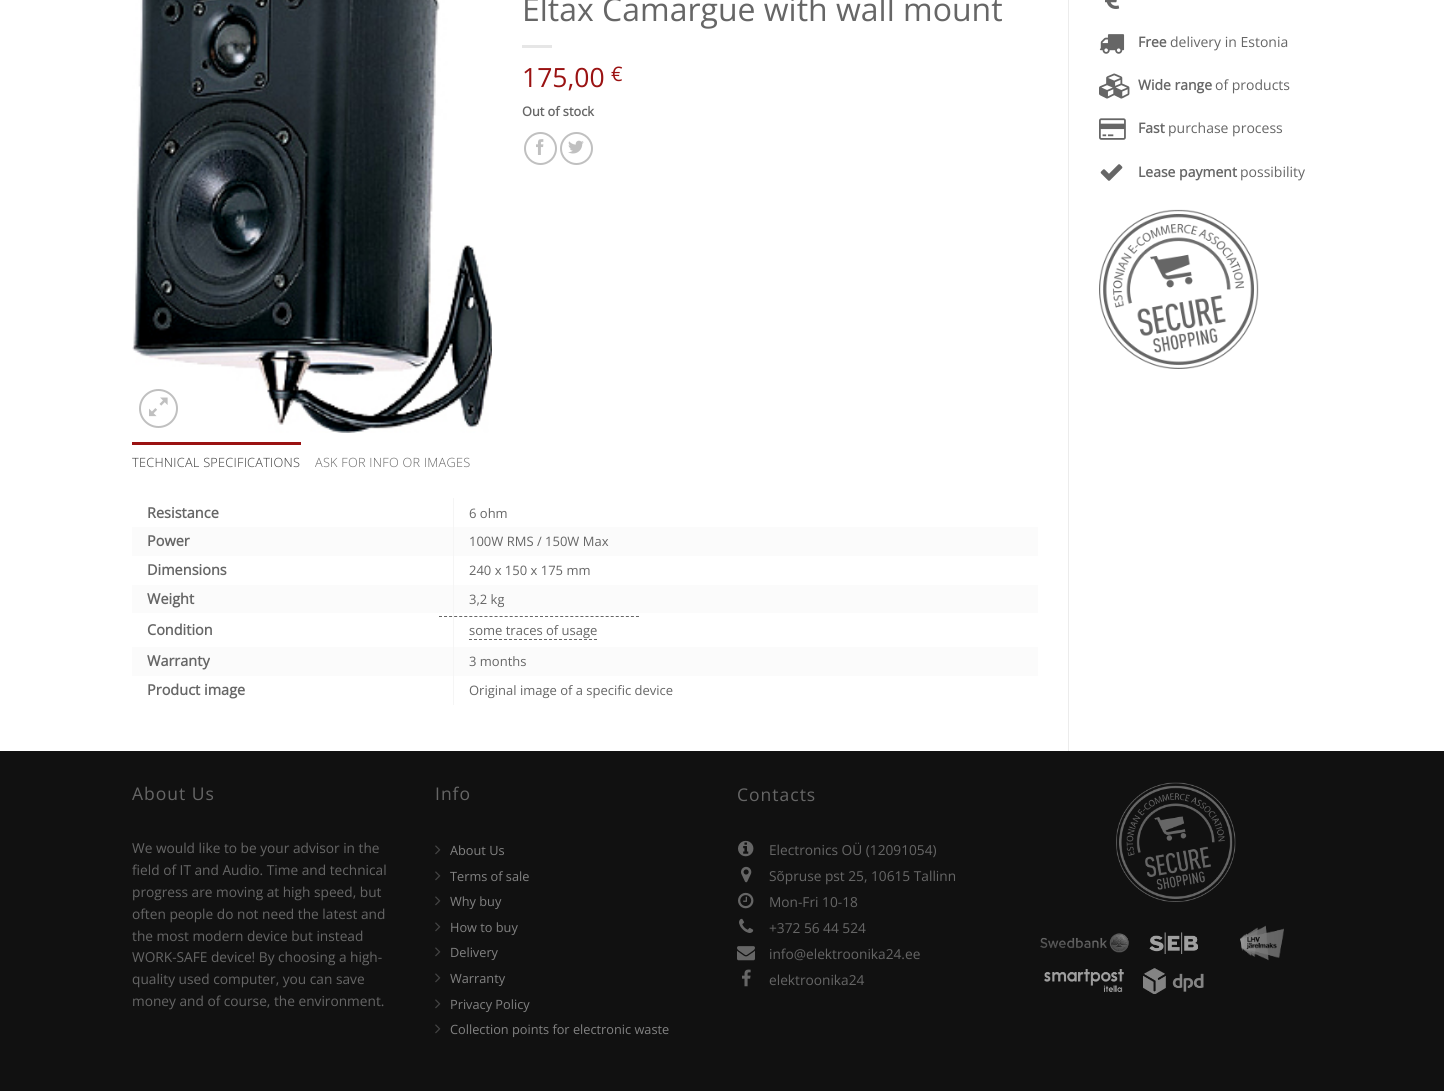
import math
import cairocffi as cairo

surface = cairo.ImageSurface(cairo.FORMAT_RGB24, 1444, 1091)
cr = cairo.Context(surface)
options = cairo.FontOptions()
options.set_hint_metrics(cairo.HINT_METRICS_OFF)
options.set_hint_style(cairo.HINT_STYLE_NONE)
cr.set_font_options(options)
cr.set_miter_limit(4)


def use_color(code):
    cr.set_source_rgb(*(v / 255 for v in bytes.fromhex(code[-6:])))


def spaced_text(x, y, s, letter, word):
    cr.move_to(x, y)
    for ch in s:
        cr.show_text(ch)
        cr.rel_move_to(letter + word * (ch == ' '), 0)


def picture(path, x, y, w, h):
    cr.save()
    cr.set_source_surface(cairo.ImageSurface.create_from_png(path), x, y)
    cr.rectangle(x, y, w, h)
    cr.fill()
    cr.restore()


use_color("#ffffff")
cr.paint()
use_color("#ececec")
cr.rectangle(1068, 0, 1, 751)
cr.fill()
picture("img1.png", 132, 0, 360, 433)
cr.arc(158.5, 408.5, 18.5, 0, 2 * math.pi)
use_color("#c0c0c0")
cr.stroke()
picture("img2.png", 149, 397, 19, 20)
cr.select_font_face("Open Sans")
cr.set_font_size(32)
use_color("#666666")
cr.move_to(522, 21)
cr.show_text("Eltax Camargue with wall mount")
use_color("#e6e6e6")
cr.rectangle(522, 45, 30, 3)
cr.fill()
cr.set_font_size(26.5)
use_color("#9a1212")
cr.move_to(522, 87)
cr.show_text("175,00")
cr.set_font_size(20)
cr.move_to(611, 81)
cr.show_text("€")
cr.select_font_face("Open Sans", cairo.FONT_SLANT_NORMAL, cairo.FONT_WEIGHT_BOLD)
cr.set_font_size(12.75)
use_color("#666666")
cr.move_to(522, 116)
cr.show_text("Out of stock")
cr.new_path()
cr.arc(540.5, 148.5, 15.5, 0, 2 * math.pi)
use_color("#c0c0c0")
cr.stroke()
picture("img3.png", 536, 139, 8, 16)
cr.arc(576.5, 148.5, 15.5, 0, 2 * math.pi)
cr.stroke()
picture("img4.png", 568, 140, 16, 14)
use_color("#9a1212")
cr.rectangle(132, 442, 169, 3)
cr.fill()
cr.select_font_face("Open Sans Light")
use_color("#363636")
spaced_text(132, 467, "TECHNICAL SPECIFICATIONS", 0.25, 0)
use_color("#666666")
spaced_text(315, 467, "ASK FOR INFO OR IMAGES", 0.25, 0)
use_color("#f5f5f5")
cr.rectangle(453, 498, 1, 29)
cr.fill()
cr.select_font_face("Open Sans", cairo.FONT_SLANT_NORMAL, cairo.FONT_WEIGHT_BOLD)
cr.set_font_size(14.5)
use_color("#666666")
cr.move_to(147, 518)
cr.show_text("Resistance")
cr.select_font_face("Open Sans")
cr.set_font_size(13)
cr.move_to(469, 518)
cr.show_text("6 ohm")
use_color("#fbfbfb")
cr.rectangle(132, 527, 906, 29)
cr.fill()
use_color("#f5f5f5")
cr.rectangle(453, 527, 1, 58)
cr.fill()
cr.select_font_face("Open Sans", cairo.FONT_SLANT_NORMAL, cairo.FONT_WEIGHT_BOLD)
cr.set_font_size(14.5)
use_color("#666666")
cr.move_to(147, 546)
cr.show_text("Power")
cr.select_font_face("Open Sans")
cr.set_font_size(13)
cr.move_to(469, 546)
cr.show_text("100W RMS / 150W Max")
cr.select_font_face("Open Sans", cairo.FONT_SLANT_NORMAL, cairo.FONT_WEIGHT_BOLD)
cr.set_font_size(14.5)
cr.move_to(147, 575)
cr.show_text("Dimensions")
cr.select_font_face("Open Sans")
cr.set_font_size(13)
cr.move_to(469, 575)
cr.show_text("240 x 150 x 175 mm")
use_color("#fbfbfb")
cr.rectangle(132, 585, 906, 28)
cr.fill()
use_color("#f5f5f5")
cr.rectangle(453, 585, 1, 62)
cr.fill()
cr.select_font_face("Open Sans", cairo.FONT_SLANT_NORMAL, cairo.FONT_WEIGHT_BOLD)
cr.set_font_size(14.5)
use_color("#666666")
cr.move_to(147, 604)
cr.show_text("Weight")
cr.select_font_face("Open Sans")
cr.set_font_size(13)
cr.move_to(469, 604)
cr.show_text("3,2 kg")
cr.select_font_face("Open Sans", cairo.FONT_SLANT_NORMAL, cairo.FONT_WEIGHT_BOLD)
cr.set_font_size(14.5)
cr.move_to(147, 635)
cr.show_text("Condition")
cr.select_font_face("Open Sans")
cr.set_font_size(13)
cr.move_to(469, 635)
cr.show_text("some traces of usage")
cr.new_path()
cr.move_to(469, 639.5)
cr.line_to(597, 639.5)
cr.set_line_width(1)
cr.set_dash([3, 2])
cr.stroke()
cr.new_path()
cr.move_to(439, 616.5)
cr.line_to(639, 616.5)
cr.set_dash([3, 2.05])
cr.stroke()
use_color("#fbfbfb")
cr.rectangle(132, 647, 906, 29)
cr.fill()
use_color("#f5f5f5")
cr.rectangle(453, 647, 1, 58)
cr.fill()
cr.select_font_face("Open Sans", cairo.FONT_SLANT_NORMAL, cairo.FONT_WEIGHT_BOLD)
cr.set_font_size(14.5)
use_color("#666666")
cr.move_to(147, 666)
cr.show_text("Warranty")
cr.select_font_face("Open Sans")
cr.set_font_size(13)
cr.move_to(469, 666)
cr.show_text("3 months")
cr.select_font_face("Open Sans", cairo.FONT_SLANT_NORMAL, cairo.FONT_WEIGHT_BOLD)
cr.set_font_size(14.5)
cr.move_to(147, 695)
cr.show_text("Product image")
cr.select_font_face("Open Sans")
cr.set_font_size(13)
cr.move_to(469, 695)
cr.show_text("Original image of a specific device")
picture("img5.png", 1105, 0, 15, 9)
picture("img6.png", 1099, 34, 26, 20)
cr.select_font_face("Open Sans", cairo.FONT_SLANT_NORMAL, cairo.FONT_WEIGHT_BOLD)
cr.set_font_size(14)
cr.move_to(1138, 47)
cr.show_text("Free")
cr.select_font_face("Open Sans")
cr.move_to(1170, 47)
cr.show_text("delivery in Estonia")
picture("img7.png", 1099, 73, 31, 26)
cr.select_font_face("Open Sans", cairo.FONT_SLANT_NORMAL, cairo.FONT_WEIGHT_BOLD)
cr.move_to(1138, 90)
cr.show_text("Wide range")
cr.select_font_face("Open Sans")
cr.move_to(1215, 90)
cr.show_text("of products")
picture("img8.png", 1099, 118, 27, 22)
cr.select_font_face("Open Sans", cairo.FONT_SLANT_NORMAL, cairo.FONT_WEIGHT_BOLD)
cr.move_to(1138, 133)
cr.show_text("Fast")
cr.select_font_face("Open Sans")
cr.move_to(1168, 133)
cr.show_text("purchase process")
picture("img9.png", 1100, 164, 23, 17)
cr.select_font_face("Open Sans", cairo.FONT_SLANT_NORMAL, cairo.FONT_WEIGHT_BOLD)
cr.move_to(1138, 177)
cr.show_text("Lease payment")
cr.select_font_face("Open Sans")
cr.move_to(1240, 177)
cr.show_text("possibility")
picture("img10.png", 1099, 209, 160, 160)
use_color("#111111")
cr.rectangle(0, 751, 1444, 340)
cr.fill()
cr.set_font_size(17.5)
use_color("#666666")
spaced_text(132, 800, "About Us", 1, 0)
cr.set_font_size(13.7)
cr.move_to(132, 853)
cr.show_text("We would like to be your advisor in the")
cr.move_to(132, 875)
cr.show_text("field of IT and Audio. Time and technical")
cr.move_to(132, 897)
cr.show_text("progress are moving at high speed, but")
cr.move_to(132, 919)
cr.show_text("often people do not need the latest and")
cr.move_to(132, 941)
cr.show_text("the most modern device but instead")
cr.move_to(132, 962)
cr.show_text("WORK-SAFE device! By choosing a high-")
cr.move_to(132, 984)
cr.show_text("quality used computer, you can save")
cr.move_to(132, 1006)
cr.show_text("money and of course, the environment.")
cr.set_font_size(17.5)
spaced_text(435, 800, "Info", 1, 0)
picture("img11.png", 435, 845, 6, 10)
cr.set_font_size(12.75)
use_color("#828282")
cr.move_to(450, 855)
cr.show_text("About Us")
picture("img11.png", 435, 871, 6, 10)
cr.move_to(450, 881)
cr.show_text("Terms of sale")
picture("img11.png", 435, 896, 6, 10)
cr.move_to(450, 906)
cr.show_text("Why buy")
picture("img11.png", 435, 922, 6, 10)
cr.move_to(450, 932)
cr.show_text("How to buy")
picture("img11.png", 435, 947, 6, 10)
cr.move_to(450, 957)
cr.show_text("Delivery")
picture("img11.png", 435, 973, 6, 10)
cr.move_to(450, 983)
cr.show_text("Warranty")
picture("img11.png", 435, 999, 6, 10)
cr.move_to(450, 1009)
cr.show_text("Privacy Policy")
picture("img11.png", 435, 1024, 6, 10)
cr.move_to(450, 1034)
cr.show_text("Collection points for electronic waste")
cr.set_font_size(17.5)
use_color("#666666")
spaced_text(737, 801, "Contacts", 1, 0)
picture("img12.png", 738, 840, 16, 17)
cr.set_font_size(13.7)
cr.move_to(769, 855)
cr.show_text("Electronics OÜ (12091054)")
picture("img13.png", 741, 866, 11, 17)
cr.move_to(769, 881)
cr.show_text("Sõpruse pst 25, 10615 Tallinn")
picture("img14.png", 738, 892, 16, 17)
cr.move_to(769, 907)
cr.show_text("Mon-Fri 10-18")
picture("img15.png", 739, 918, 15, 15)
cr.move_to(769, 933)
cr.show_text("+372 56 44 524")
picture("img16.png", 737, 946, 18, 15)
cr.move_to(769, 959)
cr.show_text("info@elektroonika24.ee")
picture("img17.png", 742, 969, 9, 18)
cr.move_to(769, 985)
cr.show_text("elektroonika24")
picture("img18.png", 1116, 782, 120, 120)
picture("img19.png", 1040, 933, 89, 20)
picture("img20.png", 1149, 932, 49, 22)
picture("img21.png", 1240, 925, 44, 36)
picture("img22.png", 1044, 969, 80, 23)
picture("img23.png", 1143, 968, 61, 26)
surface.write_to_png("result.png")
